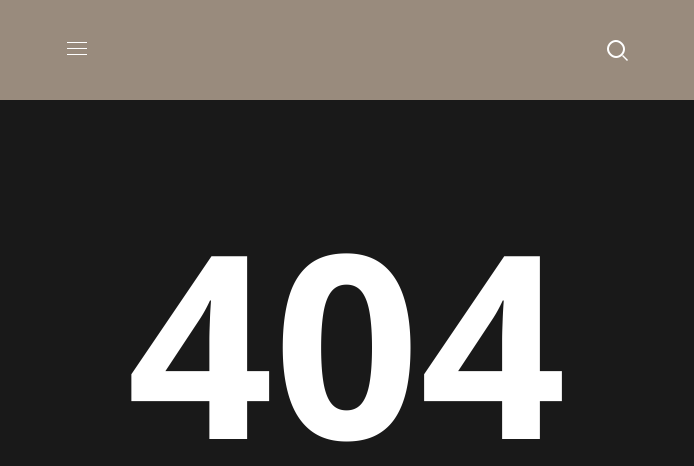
import math
import cairocffi as cairo

surface = cairo.ImageSurface(cairo.FORMAT_RGB24, 694, 466)
cr = cairo.Context(surface)
options = cairo.FontOptions()
options.set_hint_metrics(cairo.HINT_METRICS_OFF)
options.set_hint_style(cairo.HINT_STYLE_NONE)
cr.set_font_options(options)
cr.set_miter_limit(4)


def use_color(code):
    cr.set_source_rgb(*(v / 255 for v in bytes.fromhex(code[-6:])))


use_color("#191919")
cr.paint()
use_color("#998b7d")
cr.rectangle(0, 0, 694, 100)
cr.fill()
use_color("#ffffff")
cr.rectangle(67, 42, 20, 1)
cr.fill()
cr.rectangle(67, 48, 20, 1)
cr.fill()
cr.rectangle(67, 54, 20, 1)
cr.fill()
cr.new_path()
cr.move_to(621.5, 43.5)
cr.curve_to(629, 51, 618, 62, 610.5, 54.5)
cr.curve_to(603, 47, 614, 36, 621.5, 43.5)
cr.close_path()
cr.stroke()
cr.new_path()
cr.move_to(622, 56)
cr.line_to(623, 55)
cr.line_to(628, 60)
cr.line_to(627, 61)
cr.close_path()
cr.fill()
cr.select_font_face("Open Sans", cairo.FONT_SLANT_NORMAL, cairo.FONT_WEIGHT_BOLD)
cr.set_font_size(256)
cr.move_to(127, 439)
cr.show_text("404")
surface.write_to_png("result.png")
